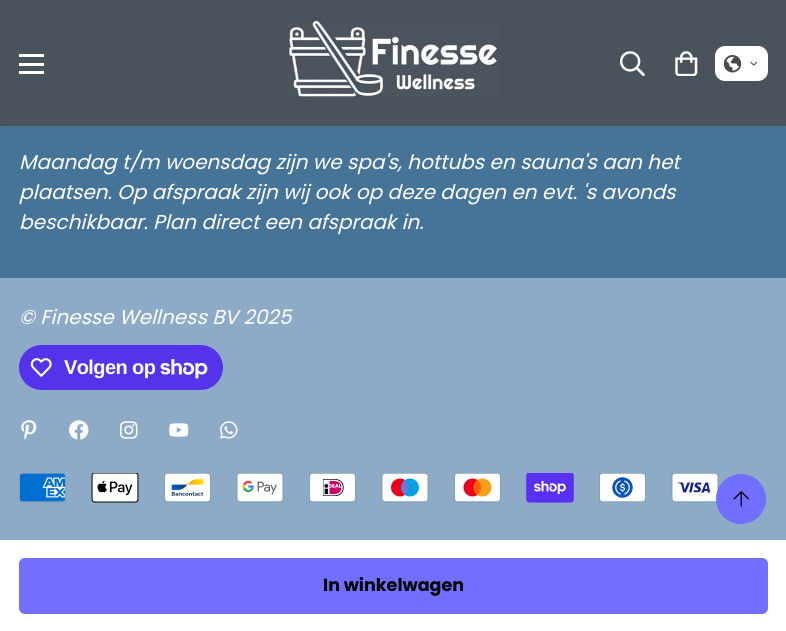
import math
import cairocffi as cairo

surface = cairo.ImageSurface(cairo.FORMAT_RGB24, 786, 631)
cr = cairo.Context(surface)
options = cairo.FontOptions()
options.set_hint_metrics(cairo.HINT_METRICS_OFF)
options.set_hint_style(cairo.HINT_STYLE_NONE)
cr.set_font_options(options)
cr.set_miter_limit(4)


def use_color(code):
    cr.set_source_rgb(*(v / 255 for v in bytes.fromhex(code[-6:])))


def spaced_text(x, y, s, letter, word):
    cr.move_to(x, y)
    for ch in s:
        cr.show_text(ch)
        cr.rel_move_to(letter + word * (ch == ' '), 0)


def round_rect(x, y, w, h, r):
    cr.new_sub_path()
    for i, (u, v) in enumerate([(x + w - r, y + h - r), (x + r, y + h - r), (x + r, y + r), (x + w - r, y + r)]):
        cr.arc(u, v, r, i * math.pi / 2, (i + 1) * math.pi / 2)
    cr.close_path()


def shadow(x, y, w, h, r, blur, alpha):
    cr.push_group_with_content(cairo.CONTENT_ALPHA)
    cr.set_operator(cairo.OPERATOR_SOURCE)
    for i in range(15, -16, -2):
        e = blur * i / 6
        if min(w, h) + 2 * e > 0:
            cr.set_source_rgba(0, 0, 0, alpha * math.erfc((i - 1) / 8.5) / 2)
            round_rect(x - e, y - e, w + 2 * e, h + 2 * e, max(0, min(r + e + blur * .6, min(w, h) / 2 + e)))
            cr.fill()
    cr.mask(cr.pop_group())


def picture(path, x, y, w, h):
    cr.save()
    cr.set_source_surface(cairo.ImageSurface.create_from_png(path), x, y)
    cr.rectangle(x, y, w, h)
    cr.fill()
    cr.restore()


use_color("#ffffff")
cr.paint()
use_color("#467498")
cr.rectangle(0, 126, 786, 152)
cr.fill()
use_color("#000000")
shadow(0, 5, 786, 126, 0, 12.5, 0.04)
use_color("#4a535c")
cr.rectangle(0, 0, 786, 126)
cr.fill()
use_color("#ffffff")
cr.rectangle(19, 63, 25, 3)
cr.fill()
cr.rectangle(19, 54, 25, 3)
cr.fill()
cr.rectangle(19, 71, 25, 3)
cr.fill()
picture("img1.png", 288, 20, 211, 77)
picture("img2.png", 620, 51, 25, 25)
picture("img3.png", 675, 51, 23, 25)
round_rect(715, 46, 53, 35, 10)
cr.fill()
picture("img4.png", 724, 55, 17, 18)
picture("img5.png", 750, 61, 7, 5)
cr.select_font_face("Poppins", cairo.FONT_SLANT_ITALIC)
cr.set_font_size(20)
cr.move_to(19, 169)
cr.show_text("Maandag t/m woensdag zijn we spa's, hottubs en sauna's aan het")
cr.move_to(19, 199)
cr.show_text("plaatsen. Op afspraak zijn wij ook op deze dagen en evt. 's avonds")
cr.move_to(19, 229)
cr.show_text("beschikbaar. Plan direct een afspraak in.")
use_color("#8dabc7")
cr.rectangle(0, 278, 786, 262)
cr.fill()
use_color("#ffffff")
cr.move_to(19, 324)
cr.show_text("© Finesse Wellness BV 2025")
use_color("#5433eb")
round_rect(19, 345, 204, 45, 22.5)
cr.fill()
picture("img6.png", 30, 358, 22, 19)
cr.select_font_face("Liberation Sans", cairo.FONT_SLANT_NORMAL, cairo.FONT_WEIGHT_BOLD)
use_color("#ffffff")
spaced_text(64, 374, "Volgen op", -0.6, 0)
picture("img7.png", 160, 359, 48, 20)
picture("img8.png", 21, 420, 16, 20)
picture("img9.png", 69, 420, 20, 20)
picture("img10.png", 120, 421, 18, 18)
picture("img11.png", 169, 423, 20, 14)
picture("img12.png", 220, 421, 18, 18)
picture("img13.png", 19, 473, 47, 30)
picture("img14.png", 91, 473, 48, 30)
picture("img15.png", 164, 473, 47, 30)
picture("img16.png", 236, 473, 48, 30)
picture("img17.png", 309, 473, 47, 30)
picture("img18.png", 381, 473, 48, 30)
picture("img19.png", 454, 473, 47, 30)
picture("img20.png", 526, 473, 48, 30)
picture("img21.png", 599, 473, 47, 29)
picture("img22.png", 671, 473, 48, 30)
use_color("#726eff")
cr.arc(741, 499, 24.5, 0, 2 * math.pi)
cr.fill_preserve()
cr.set_line_width(1)
cr.stroke()
picture("img23.png", 733, 491, 16, 16)
round_rect(19.5, 558.5, 748, 55, 5.5)
cr.fill_preserve()
cr.stroke()
cr.select_font_face("Poppins", cairo.FONT_SLANT_NORMAL, cairo.FONT_WEIGHT_BOLD)
cr.set_font_size(17.5)
use_color("#000000")
cr.move_to(323, 591)
cr.show_text("In winkelwagen")
surface.write_to_png("result.png")
